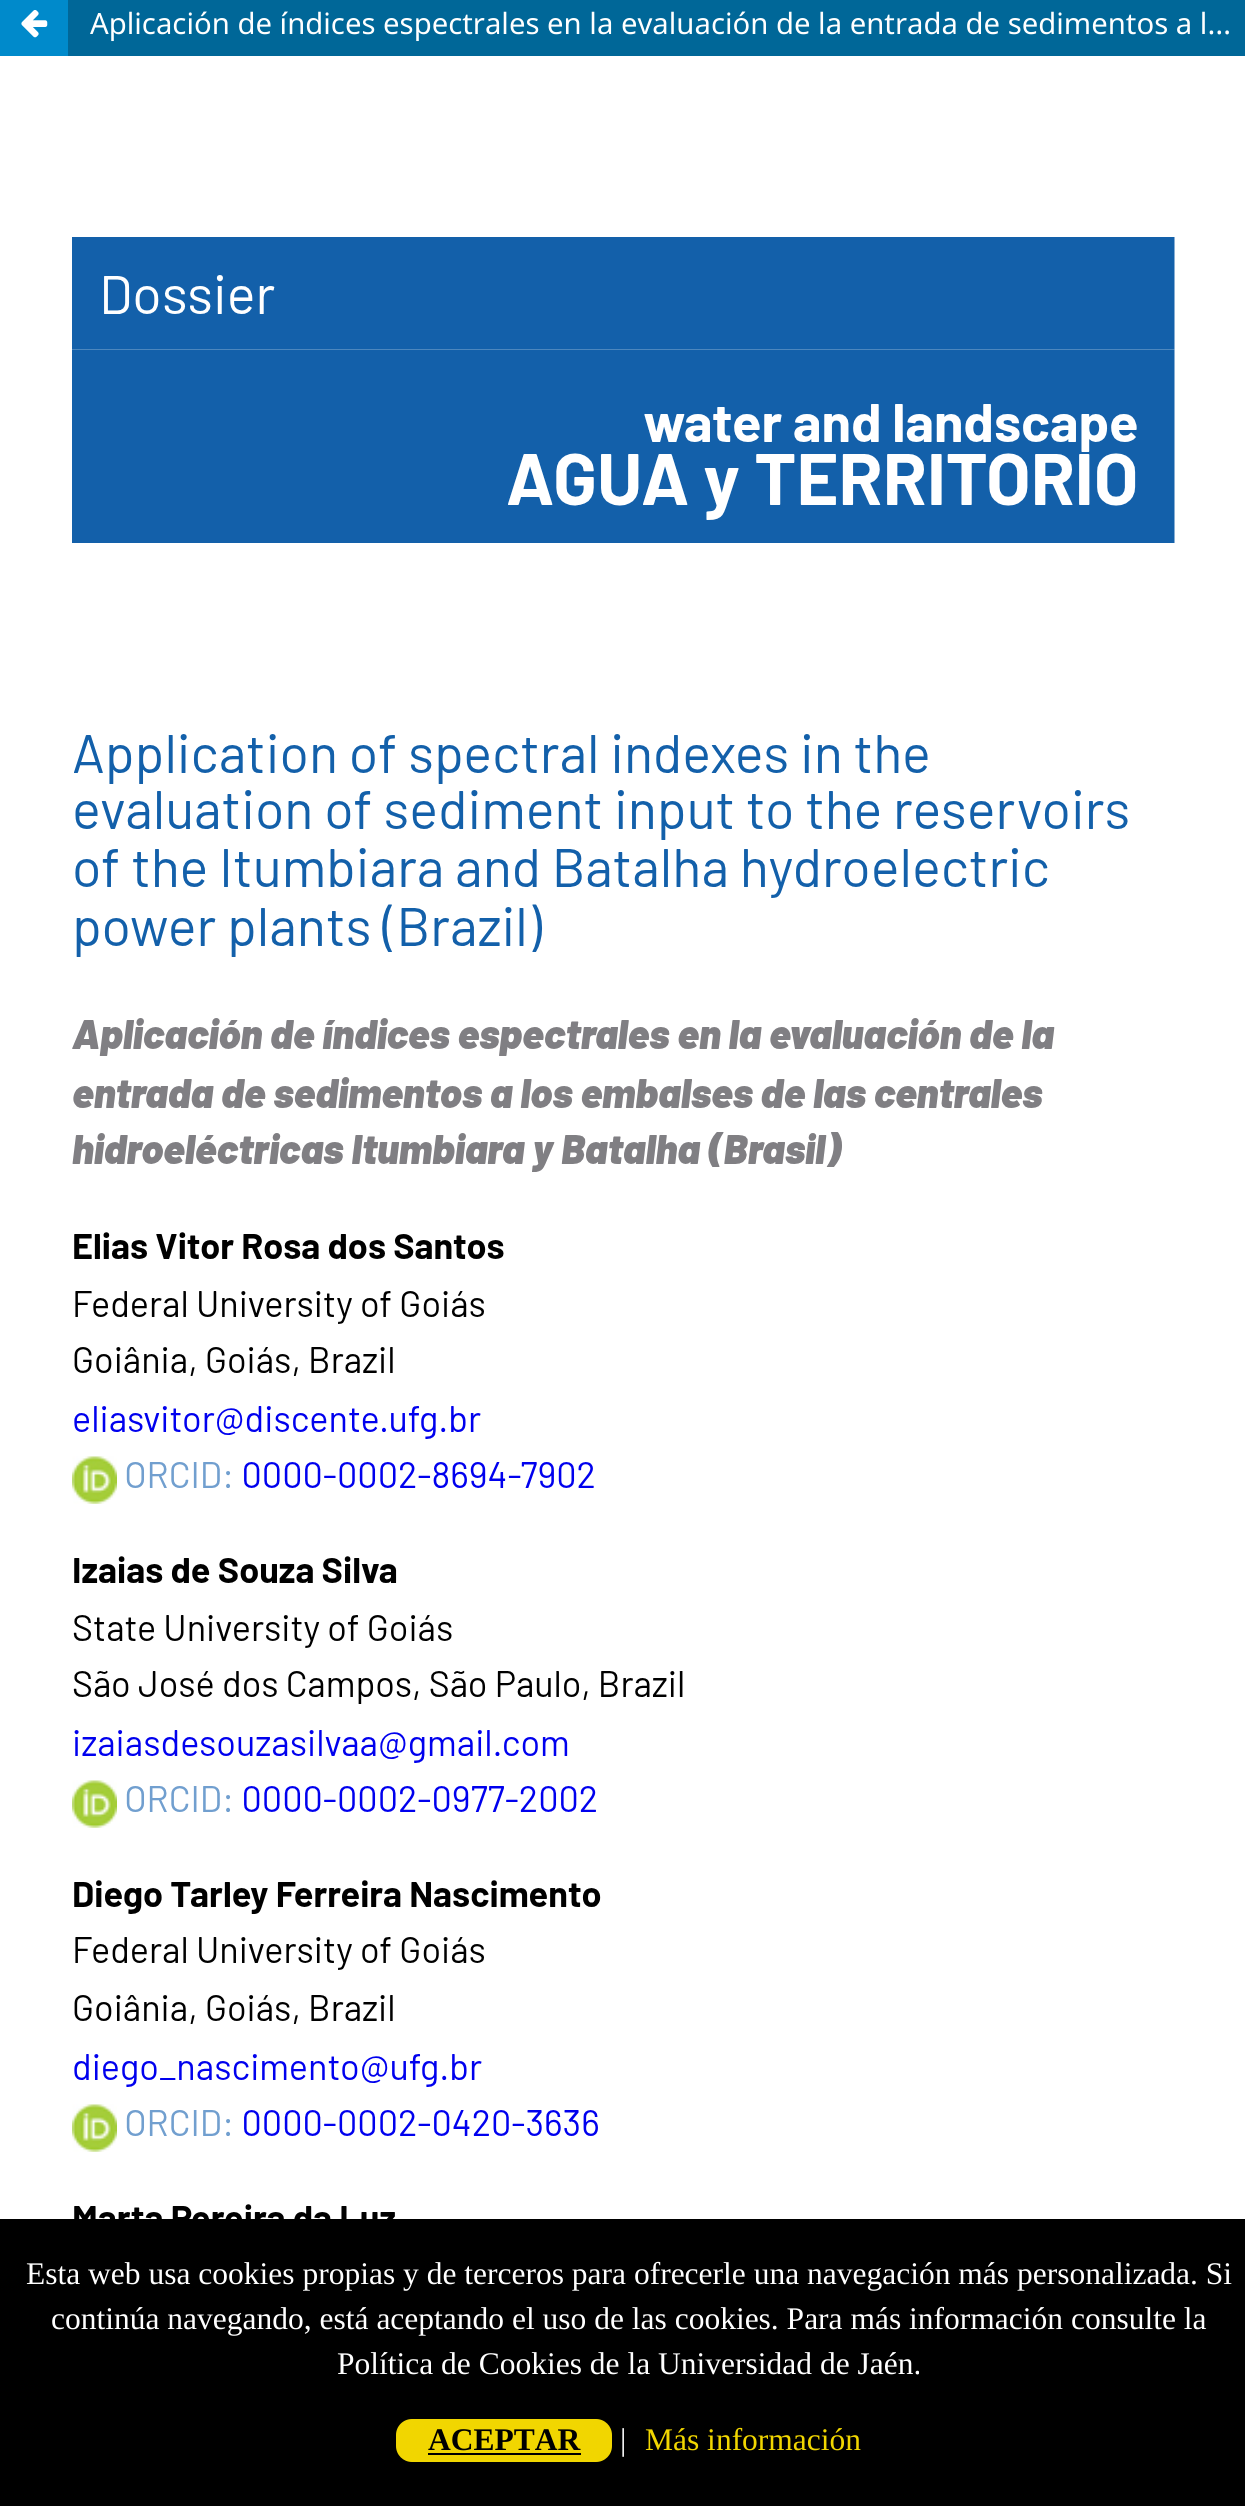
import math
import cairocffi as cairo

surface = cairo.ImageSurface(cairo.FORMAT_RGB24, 1245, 2506)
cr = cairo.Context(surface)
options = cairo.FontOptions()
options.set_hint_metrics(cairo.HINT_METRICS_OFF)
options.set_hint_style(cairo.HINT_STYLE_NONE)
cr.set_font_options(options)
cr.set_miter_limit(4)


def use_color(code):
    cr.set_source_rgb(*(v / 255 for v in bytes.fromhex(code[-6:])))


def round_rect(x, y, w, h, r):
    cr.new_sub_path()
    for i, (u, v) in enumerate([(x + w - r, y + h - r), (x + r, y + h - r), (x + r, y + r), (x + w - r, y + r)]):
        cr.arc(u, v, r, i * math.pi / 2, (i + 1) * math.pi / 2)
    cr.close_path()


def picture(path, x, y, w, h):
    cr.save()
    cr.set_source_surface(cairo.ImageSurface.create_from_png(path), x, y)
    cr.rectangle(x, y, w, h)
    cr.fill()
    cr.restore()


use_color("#ffffff")
cr.paint()
use_color("#006798")
cr.rectangle(68, 0, 1177, 56)
cr.fill()
use_color("#008acb")
cr.rectangle(0, 0, 68, 56)
cr.fill()
picture("img1.png", 21, 10, 27, 28)
cr.select_font_face("Noto Sans")
cr.set_font_size(29.3)
use_color("#ffffff")
cr.move_to(90, 34)
cr.show_text("Aplicación de índices espectrales en la evaluación de la entrada de sedimentos a l…")
picture("img2.png", 72, 237, 1103, 1982)
use_color("#000000")
cr.rectangle(0, 2219, 1245, 287)
cr.fill()
cr.select_font_face("Liberation Serif")
cr.set_font_size(31.5)
use_color("#ffffff")
cr.move_to(26, 2284)
cr.show_text("Esta web usa cookies propias y de terceros para ofrecerle una navegación más personalizada. Si")
cr.move_to(51, 2329)
cr.show_text("continúa navegando, está aceptando el uso de las cookies. Para más información consulte la")
cr.move_to(337, 2374)
cr.show_text("Política de Cookies de la Universidad de Jaén.")
use_color("#f1d600")
round_rect(396, 2419, 216, 43, 16)
cr.fill()
cr.select_font_face("Liberation Serif", cairo.FONT_SLANT_NORMAL, cairo.FONT_WEIGHT_BOLD)
use_color("#000000")
cr.move_to(428, 2450)
cr.show_text("ACEPTAR")
cr.rectangle(428, 2453, 153, 2)
cr.fill()
cr.select_font_face("Liberation Serif")
use_color("#ffffff")
cr.move_to(620, 2450)
cr.show_text("|")
use_color("#f1d600")
cr.move_to(645, 2450)
cr.show_text("Más información")
surface.write_to_png("result.png")
